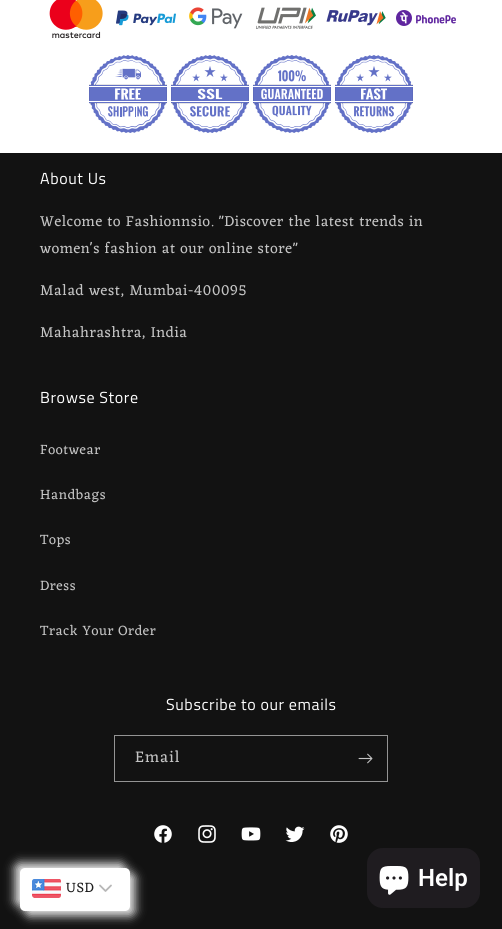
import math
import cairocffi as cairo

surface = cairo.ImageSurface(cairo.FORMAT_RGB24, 502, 929)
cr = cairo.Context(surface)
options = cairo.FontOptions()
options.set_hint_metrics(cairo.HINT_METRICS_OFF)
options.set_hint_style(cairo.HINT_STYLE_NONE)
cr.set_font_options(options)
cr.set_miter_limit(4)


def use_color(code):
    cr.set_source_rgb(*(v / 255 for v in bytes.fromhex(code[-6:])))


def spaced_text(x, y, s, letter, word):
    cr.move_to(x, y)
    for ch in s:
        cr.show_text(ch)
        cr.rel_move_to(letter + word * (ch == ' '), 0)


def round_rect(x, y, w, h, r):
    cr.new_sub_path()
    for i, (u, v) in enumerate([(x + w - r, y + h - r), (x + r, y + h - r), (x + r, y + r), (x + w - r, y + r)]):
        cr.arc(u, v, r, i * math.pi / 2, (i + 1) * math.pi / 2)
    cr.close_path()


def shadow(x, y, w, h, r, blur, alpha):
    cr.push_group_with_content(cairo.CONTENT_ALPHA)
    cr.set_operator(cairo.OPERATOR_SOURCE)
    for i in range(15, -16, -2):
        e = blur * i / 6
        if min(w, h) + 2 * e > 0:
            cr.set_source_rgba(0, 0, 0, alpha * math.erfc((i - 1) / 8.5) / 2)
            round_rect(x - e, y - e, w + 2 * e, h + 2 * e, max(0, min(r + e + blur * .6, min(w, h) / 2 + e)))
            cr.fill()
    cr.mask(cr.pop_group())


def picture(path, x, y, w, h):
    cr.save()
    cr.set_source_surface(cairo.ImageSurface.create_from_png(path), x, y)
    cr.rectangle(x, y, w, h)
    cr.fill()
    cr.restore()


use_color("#ffffff")
cr.paint()
picture("img1.png", 49, 0, 54, 39)
picture("img2.png", 116, 10, 60, 16)
picture("img3.png", 189, 7, 54, 22)
picture("img4.png", 256, 7, 60, 22)
picture("img5.png", 326, 10, 60, 16)
picture("img6.png", 396, 10, 60, 16)
picture("img7.png", 89, 55, 78, 78)
picture("img8.png", 171, 55, 78, 78)
picture("img9.png", 253, 55, 78, 78)
picture("img10.png", 335, 55, 78, 78)
use_color("#121212")
cr.rectangle(0, 153, 502, 776)
cr.fill()
cr.select_font_face("Titillium Web")
cr.set_font_size(16)
use_color("#ffffff")
spaced_text(40, 184, "About Us", 0.6, 0)
cr.select_font_face("Eczar")
cr.set_font_size(15)
use_color("#c4c4c4")
spaced_text(40, 226, "Welcome to Fashionnsio. \"Discover the latest trends in", 0.6, 0)
spaced_text(40, 253, "women's fashion at our online store\"", 0.6, 0)
spaced_text(40, 295, "Malad west, Mumbai-400095", 0.6, 0)
spaced_text(40, 337, "Mahahrashtra, India", 0.6, 0)
cr.select_font_face("Titillium Web")
cr.set_font_size(16)
use_color("#ffffff")
spaced_text(40, 403, "Browse Store", 0.6, 0)
cr.select_font_face("Eczar")
cr.set_font_size(14)
use_color("#c4c4c4")
spaced_text(40, 454, "Footwear", 0.6, 0)
spaced_text(40, 499, "Handbags", 0.6, 0)
spaced_text(40, 544, "Tops", 0.6, 0)
spaced_text(40, 590, "Dress", 0.6, 0)
spaced_text(40, 635, "Track Your Order", 0.6, 0)
cr.select_font_face("Titillium Web")
cr.set_font_size(16)
use_color("#ffffff")
spaced_text(166, 710, "Subscribe to our emails", 0.6, 0)
cr.rectangle(114.5, 735.5, 273, 46)
use_color("#949494")
cr.set_line_width(1)
cr.stroke()
cr.select_font_face("Eczar")
use_color("#c4c4c4")
spaced_text(135, 762, "Email", 1, 0)
picture("img11.png", 358, 753, 15, 11)
picture("img12.png", 154, 825, 18, 18)
picture("img13.png", 198, 825, 18, 18)
picture("img14.png", 241, 827, 20, 14)
picture("img15.png", 285, 826, 20, 16)
picture("img16.png", 330, 825, 18, 18)
use_color("#e8e8e8")
shadow(15, 863, 110, 43, 5, 5, 1)
shadow(25, 873, 110, 43, 5, 5, 1)
use_color("#ffffff")
round_rect(20, 868, 110, 43, 5)
cr.fill()
picture("img17.png", 32, 879, 29, 19)
cr.set_font_size(14)
use_color("#1e1e1e")
spaced_text(66, 892, "USD", 0.6, 0)
cr.new_path()
cr.move_to(100, 885.5)
cr.line_to(105.5, 891)
cr.line_to(111, 885.5)
use_color("#b7b7b7")
cr.set_line_width(1.8)
cr.set_line_cap(cairo.LINE_CAP_ROUND)
cr.set_line_join(cairo.LINE_JOIN_ROUND)
cr.stroke()
use_color("#1f1c20")
round_rect(367, 848, 113, 60, 16)
cr.fill()
picture("img18.png", 379, 866, 30, 29)
cr.select_font_face("Roboto SemiBold")
cr.set_font_size(24)
use_color("#ffffff")
cr.move_to(418, 886)
cr.show_text("Help")
surface.write_to_png("result.png")
